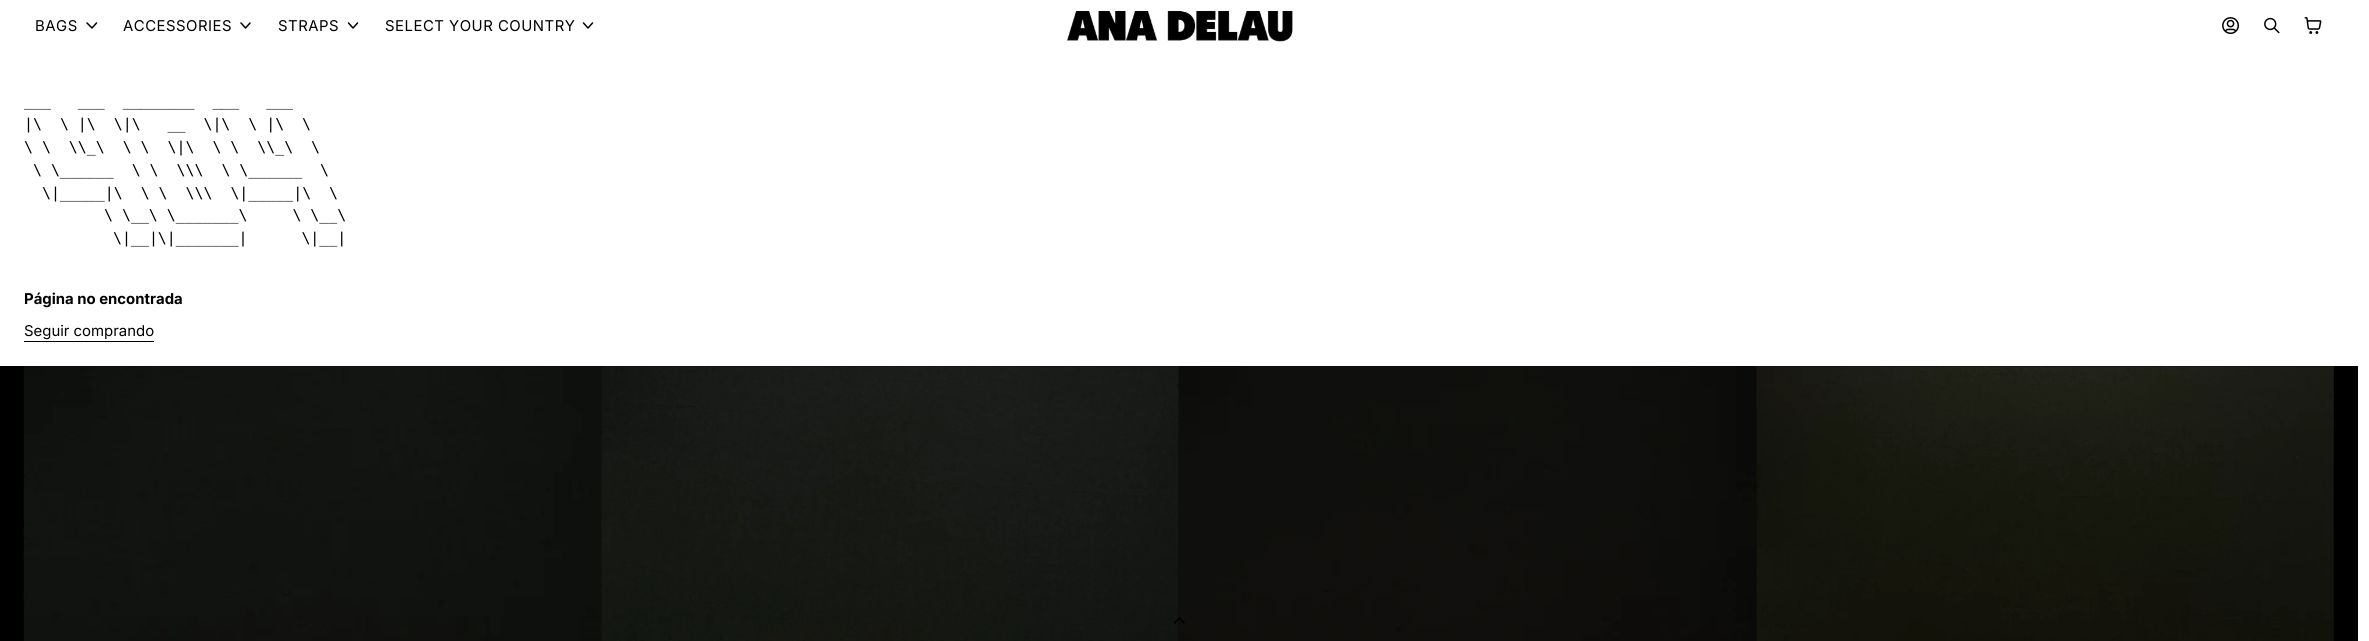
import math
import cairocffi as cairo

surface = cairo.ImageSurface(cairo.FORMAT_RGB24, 2369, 641)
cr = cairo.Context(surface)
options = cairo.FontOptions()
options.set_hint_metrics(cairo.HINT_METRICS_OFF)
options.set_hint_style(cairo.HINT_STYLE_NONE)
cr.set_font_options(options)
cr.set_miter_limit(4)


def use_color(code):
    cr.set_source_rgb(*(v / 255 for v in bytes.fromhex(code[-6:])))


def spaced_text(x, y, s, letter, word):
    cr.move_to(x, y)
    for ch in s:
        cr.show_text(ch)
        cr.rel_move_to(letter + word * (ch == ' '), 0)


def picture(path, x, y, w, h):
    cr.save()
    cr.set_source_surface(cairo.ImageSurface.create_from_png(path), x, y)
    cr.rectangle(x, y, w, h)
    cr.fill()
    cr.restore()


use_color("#ffffff")
cr.paint()
cr.select_font_face("Inter")
cr.set_font_size(14.9)
use_color("#000000")
spaced_text(35, 31, "BAGS", 0.5, 0)
cr.new_path()
cr.move_to(87, 23)
cr.line_to(92, 28)
cr.line_to(96.5, 23)
cr.set_line_width(1.5)
cr.set_line_cap(cairo.LINE_CAP_ROUND)
cr.set_line_join(cairo.LINE_JOIN_ROUND)
cr.stroke()
spaced_text(123, 31, "ACCESSORIES", 0.5, 0)
cr.new_path()
cr.move_to(241, 23)
cr.line_to(245.5, 28)
cr.line_to(250, 23)
cr.stroke()
spaced_text(278, 31, "STRAPS", 0.5, 0)
cr.new_path()
cr.move_to(348.5, 23)
cr.line_to(353, 28)
cr.line_to(357.5, 23)
cr.stroke()
spaced_text(385, 31, "SELECT YOUR COUNTRY", 0.5, 0)
cr.new_path()
cr.move_to(583.5, 23)
cr.line_to(588, 28)
cr.line_to(592.5, 23)
cr.stroke()
picture("img1.png", 1067, 10, 226, 32)
picture("img2.png", 2222, 17, 17, 17)
picture("img3.png", 2264, 17, 16, 17)
picture("img4.png", 2304, 17, 18, 17)
cr.select_font_face("DejaVu Sans Mono")
cr.move_to(24, 106)
cr.show_text("___   ___  ________  ___   ___")
cr.move_to(24, 129)
cr.show_text("|\\  \\ |\\  \\|\\   __  \\|\\  \\ |\\  \\")
cr.move_to(24, 152)
cr.show_text("\\ \\  \\\\_\\  \\ \\  \\|\\  \\ \\  \\\\_\\  \\")
cr.move_to(33, 175)
cr.show_text("\\ \\______  \\ \\  \\\\\\  \\ \\______  \\")
cr.move_to(42, 198)
cr.show_text("\\|_____|\\  \\ \\  \\\\\\  \\|_____|\\  \\")
cr.move_to(104, 220)
cr.show_text("\\ \\__\\ \\_______\\     \\ \\__\\")
cr.move_to(113, 243)
cr.show_text("\\|__|\\|_______|      \\|__|")
cr.select_font_face("Inter", cairo.FONT_SLANT_NORMAL, cairo.FONT_WEIGHT_BOLD)
cr.move_to(24, 304)
cr.show_text("Página no encontrada")
cr.select_font_face("Inter")
cr.move_to(24, 336)
cr.show_text("Seguir comprando")
cr.rectangle(24, 341, 130, 1)
cr.fill()
cr.rectangle(0, 366, 2358, 275)
cr.fill()
picture("img5.png", 23, 366, 579, 275)
picture("img6.png", 601, 366, 578, 275)
picture("img7.png", 1179, 366, 577, 275)
picture("img8.png", 1756, 366, 578, 275)
cr.new_path()
cr.move_to(1184, 623)
cr.line_to(1179.5, 618)
cr.line_to(1174.5, 623)
cr.stroke()
surface.write_to_png("result.png")
